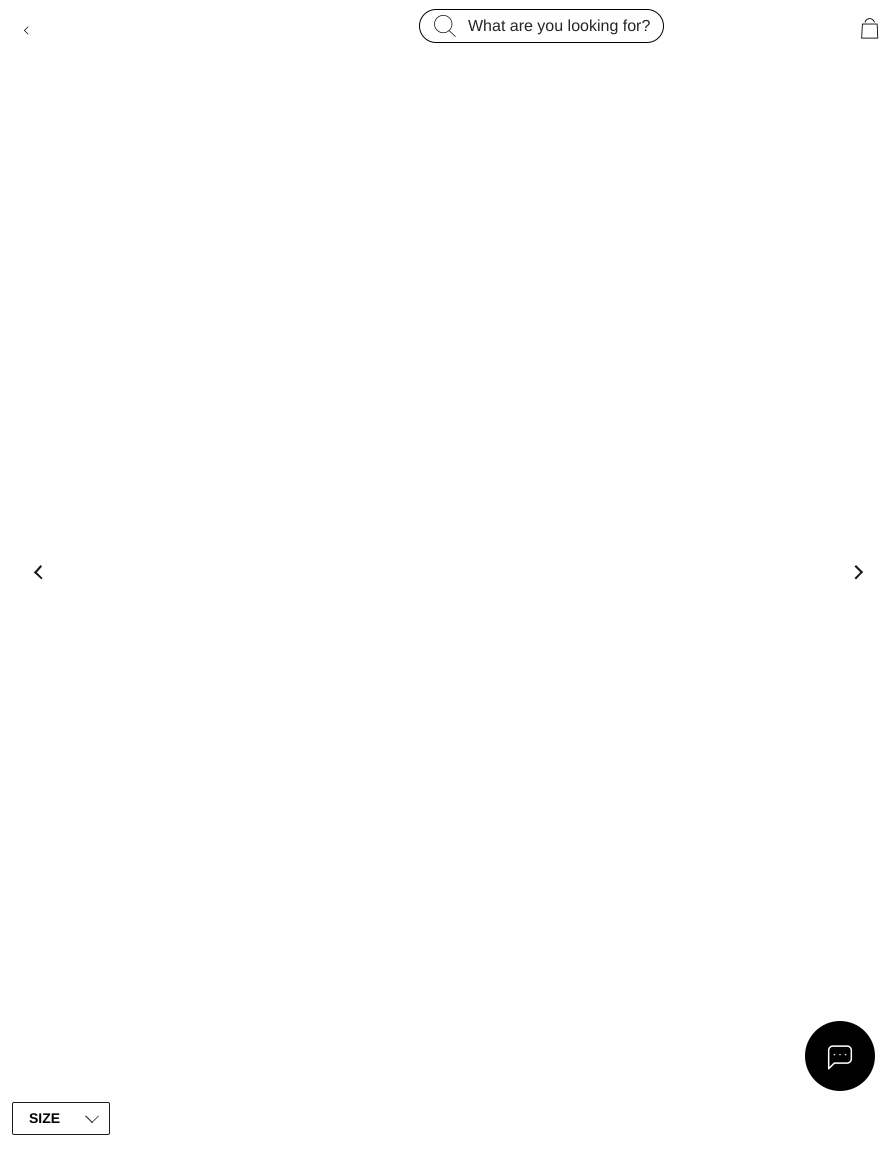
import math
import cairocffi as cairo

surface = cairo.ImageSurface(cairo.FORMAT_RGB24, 895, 1163)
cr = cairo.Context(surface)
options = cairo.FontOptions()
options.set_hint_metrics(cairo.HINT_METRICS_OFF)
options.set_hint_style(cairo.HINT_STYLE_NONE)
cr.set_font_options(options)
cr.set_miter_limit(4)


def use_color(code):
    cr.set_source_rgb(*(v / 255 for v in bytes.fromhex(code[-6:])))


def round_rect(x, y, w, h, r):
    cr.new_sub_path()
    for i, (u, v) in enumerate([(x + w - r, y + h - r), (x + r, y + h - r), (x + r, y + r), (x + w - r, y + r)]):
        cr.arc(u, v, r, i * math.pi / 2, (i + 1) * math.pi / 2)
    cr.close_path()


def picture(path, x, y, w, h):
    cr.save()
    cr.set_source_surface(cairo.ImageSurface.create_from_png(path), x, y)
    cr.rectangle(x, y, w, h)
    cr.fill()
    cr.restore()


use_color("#ffffff")
cr.paint()
use_color("#000000")
cr.new_path()
cr.move_to(28.5, 34)
cr.line_to(28, 34.5)
cr.line_to(24, 30.5)
cr.line_to(24.5, 30)
cr.close_path()
cr.fill()
cr.new_path()
cr.move_to(28.5, 27)
cr.line_to(24.5, 31)
cr.line_to(24, 30.5)
cr.line_to(28, 26.5)
cr.close_path()
cr.fill()
round_rect(419.5, 9.5, 244, 33, 16.5)
cr.set_line_width(1)
cr.stroke()
picture("img1.png", 434, 15, 22, 22)
cr.select_font_face("Liberation Sans")
cr.set_font_size(16)
use_color("#252525")
cr.move_to(468, 31)
cr.show_text("What are you looking for?")
picture("img2.png", 861, 18, 18, 21)
use_color("#171717")
cr.new_path()
cr.move_to(42.5, 578)
cr.line_to(41.5, 579.5)
cr.line_to(34, 572.5)
cr.line_to(35.5, 571)
cr.close_path()
cr.fill()
cr.new_path()
cr.move_to(42, 566.5)
cr.line_to(35.5, 574)
cr.line_to(34, 572.5)
cr.line_to(40.5, 565)
cr.close_path()
cr.fill()
cr.new_path()
cr.move_to(854.5, 566.5)
cr.line_to(856, 565)
cr.line_to(863, 572)
cr.line_to(861.5, 573.5)
cr.close_path()
cr.fill()
cr.new_path()
cr.move_to(854.5, 578)
cr.line_to(861.5, 571)
cr.line_to(863, 572)
cr.line_to(856, 579.5)
cr.close_path()
cr.fill()
round_rect(12.5, 1102.5, 97, 32, 1.5)
use_color("#1c1d1f")
cr.stroke()
cr.select_font_face("Liberation Sans", cairo.FONT_SLANT_NORMAL, cairo.FONT_WEIGHT_BOLD)
cr.set_font_size(14)
use_color("#000000")
cr.move_to(29, 1123)
cr.show_text("SIZE")
use_color("#1c1d1f")
cr.new_path()
cr.move_to(99, 1116)
cr.line_to(92, 1123)
cr.line_to(91.5, 1122.5)
cr.line_to(98.5, 1115.5)
cr.close_path()
cr.fill()
cr.new_path()
cr.move_to(93, 1122.5)
cr.line_to(92, 1123)
cr.line_to(85, 1116)
cr.line_to(86, 1115.5)
cr.close_path()
cr.fill()
use_color("#000000")
cr.arc(840, 1056, 35, 0, 2 * math.pi)
cr.fill()
picture("img3.png", 827, 1045, 26, 25)
surface.write_to_png("result.png")
